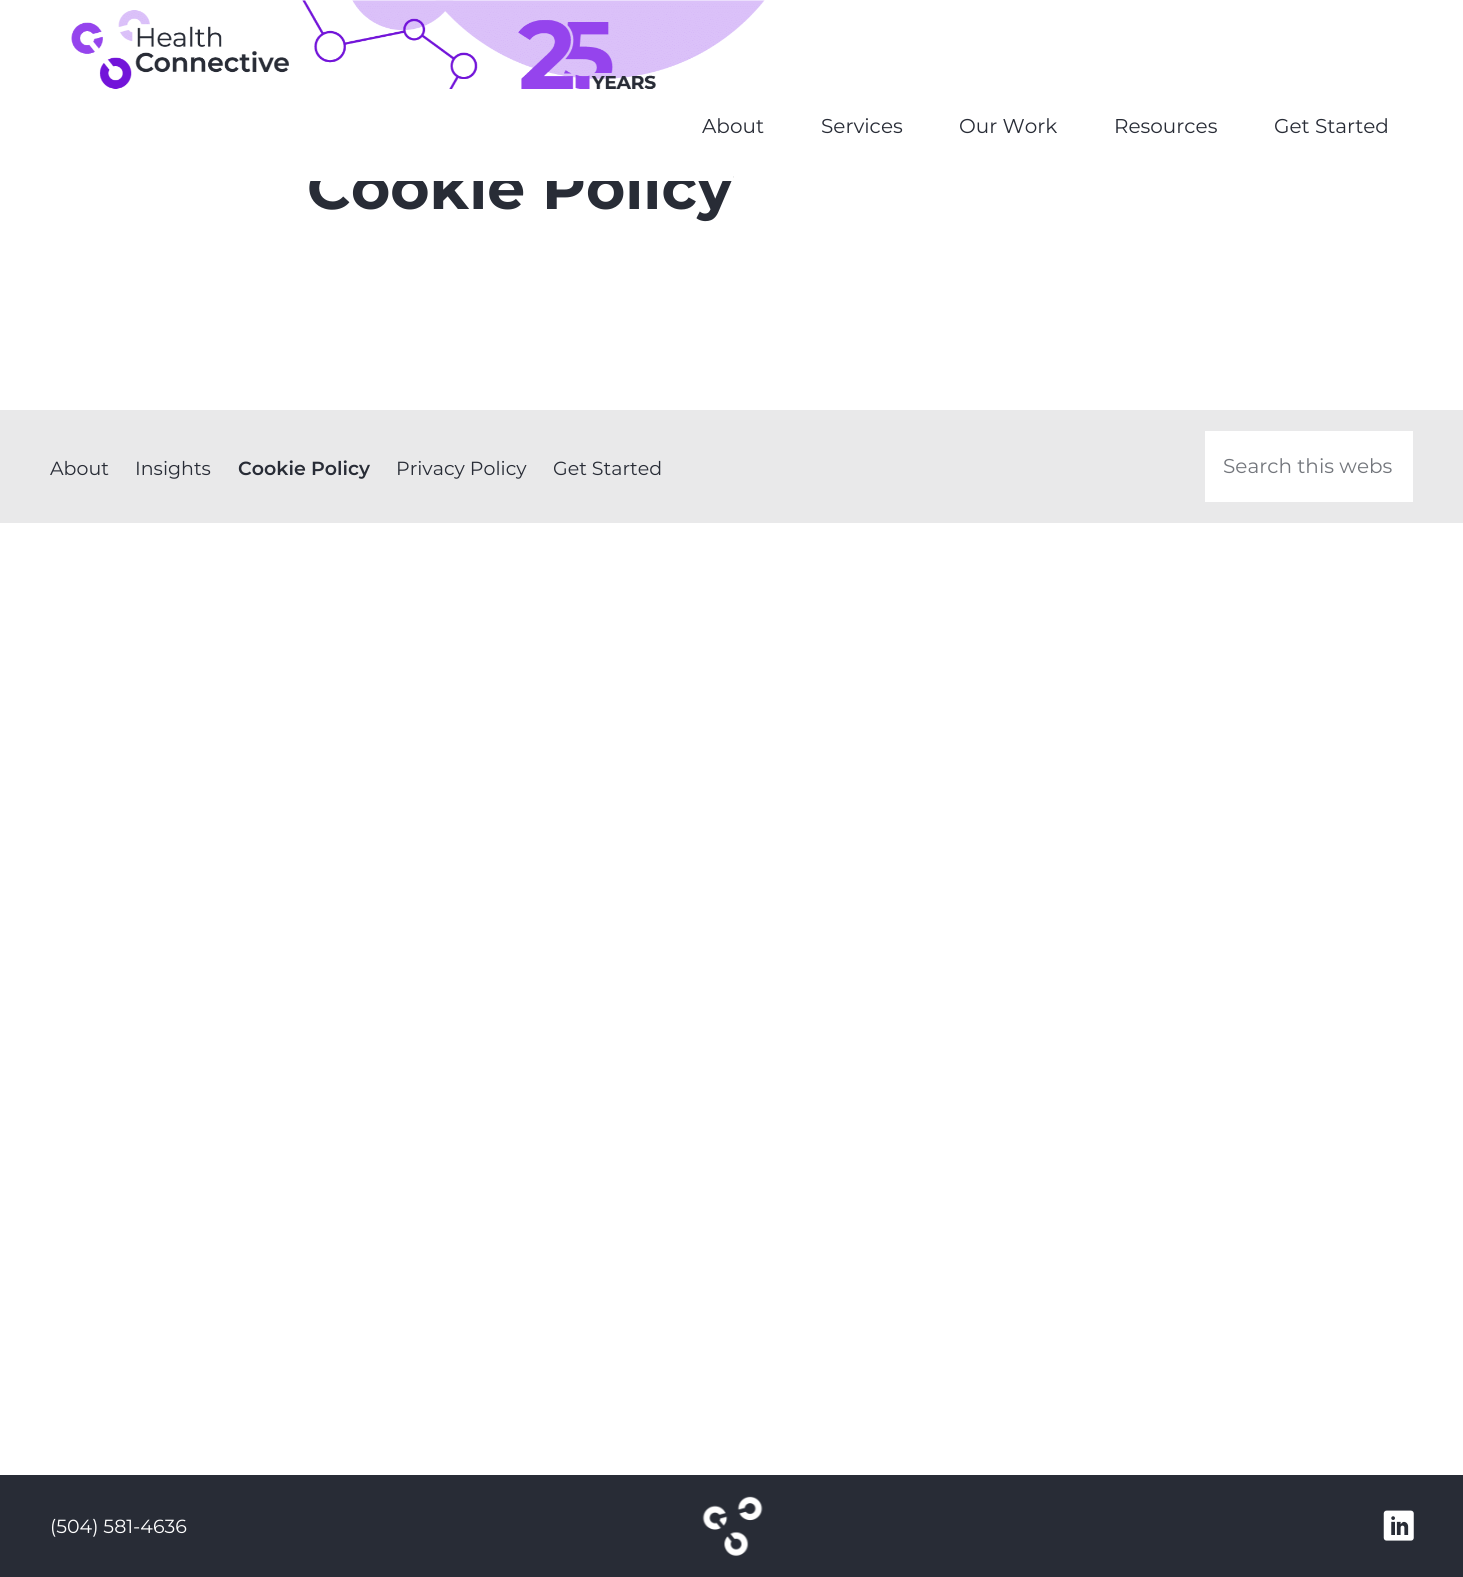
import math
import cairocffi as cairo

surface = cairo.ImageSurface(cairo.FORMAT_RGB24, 1463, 1577)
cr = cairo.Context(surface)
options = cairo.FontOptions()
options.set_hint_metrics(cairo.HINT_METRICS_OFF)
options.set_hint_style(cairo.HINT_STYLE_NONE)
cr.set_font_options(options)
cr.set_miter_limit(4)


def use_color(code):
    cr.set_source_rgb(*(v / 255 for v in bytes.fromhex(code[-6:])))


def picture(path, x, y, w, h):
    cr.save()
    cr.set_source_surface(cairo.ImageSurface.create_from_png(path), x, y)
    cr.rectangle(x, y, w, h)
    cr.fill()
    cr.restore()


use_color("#ffffff")
cr.paint()
cr.select_font_face("Montserrat", cairo.FONT_SLANT_NORMAL, cairo.FONT_WEIGHT_BOLD)
cr.set_font_size(60)
use_color("#282c36")
cr.move_to(307, 209)
cr.show_text("Cookie Policy")
use_color("#ffffff")
cr.rectangle(310, 161, 423, 20)
cr.fill()
picture("img1.png", 71, 0, 694, 89)
cr.select_font_face("Montserrat")
cr.set_font_size(20)
use_color("#282c36")
cr.move_to(702, 133)
cr.show_text("About")
cr.move_to(821, 133)
cr.show_text("Services")
cr.move_to(959, 133)
cr.show_text("Our Work")
cr.move_to(1114, 133)
cr.show_text("Resources")
cr.move_to(1274, 133)
cr.show_text("Get Started")
use_color("#e9e9ea")
cr.rectangle(0, 410, 1463, 113)
cr.fill()
cr.set_font_size(19)
use_color("#282c36")
cr.move_to(50, 475)
cr.show_text("About")
cr.move_to(135, 475)
cr.show_text("Insights")
cr.select_font_face("Montserrat SemiBold")
cr.move_to(238, 475)
cr.show_text("Cookie Policy")
cr.select_font_face("Montserrat")
cr.move_to(396, 475)
cr.show_text("Privacy Policy")
cr.move_to(553, 475)
cr.show_text("Get Started")
use_color("#ffffff")
cr.rectangle(1205, 431, 208, 71)
cr.fill()
cr.set_font_size(20)
use_color("#73767c")
cr.move_to(1223, 473)
cr.show_text("Search this webs")
use_color("#282c36")
cr.rectangle(0, 1475, 1463, 102)
cr.fill()
cr.set_font_size(19)
use_color("#ffffff")
cr.move_to(50, 1533)
cr.show_text("(504) 581-4636")
picture("img2.png", 702, 1496, 61, 60)
picture("img3.png", 1383, 1510, 31, 31)
surface.write_to_png("result.png")
